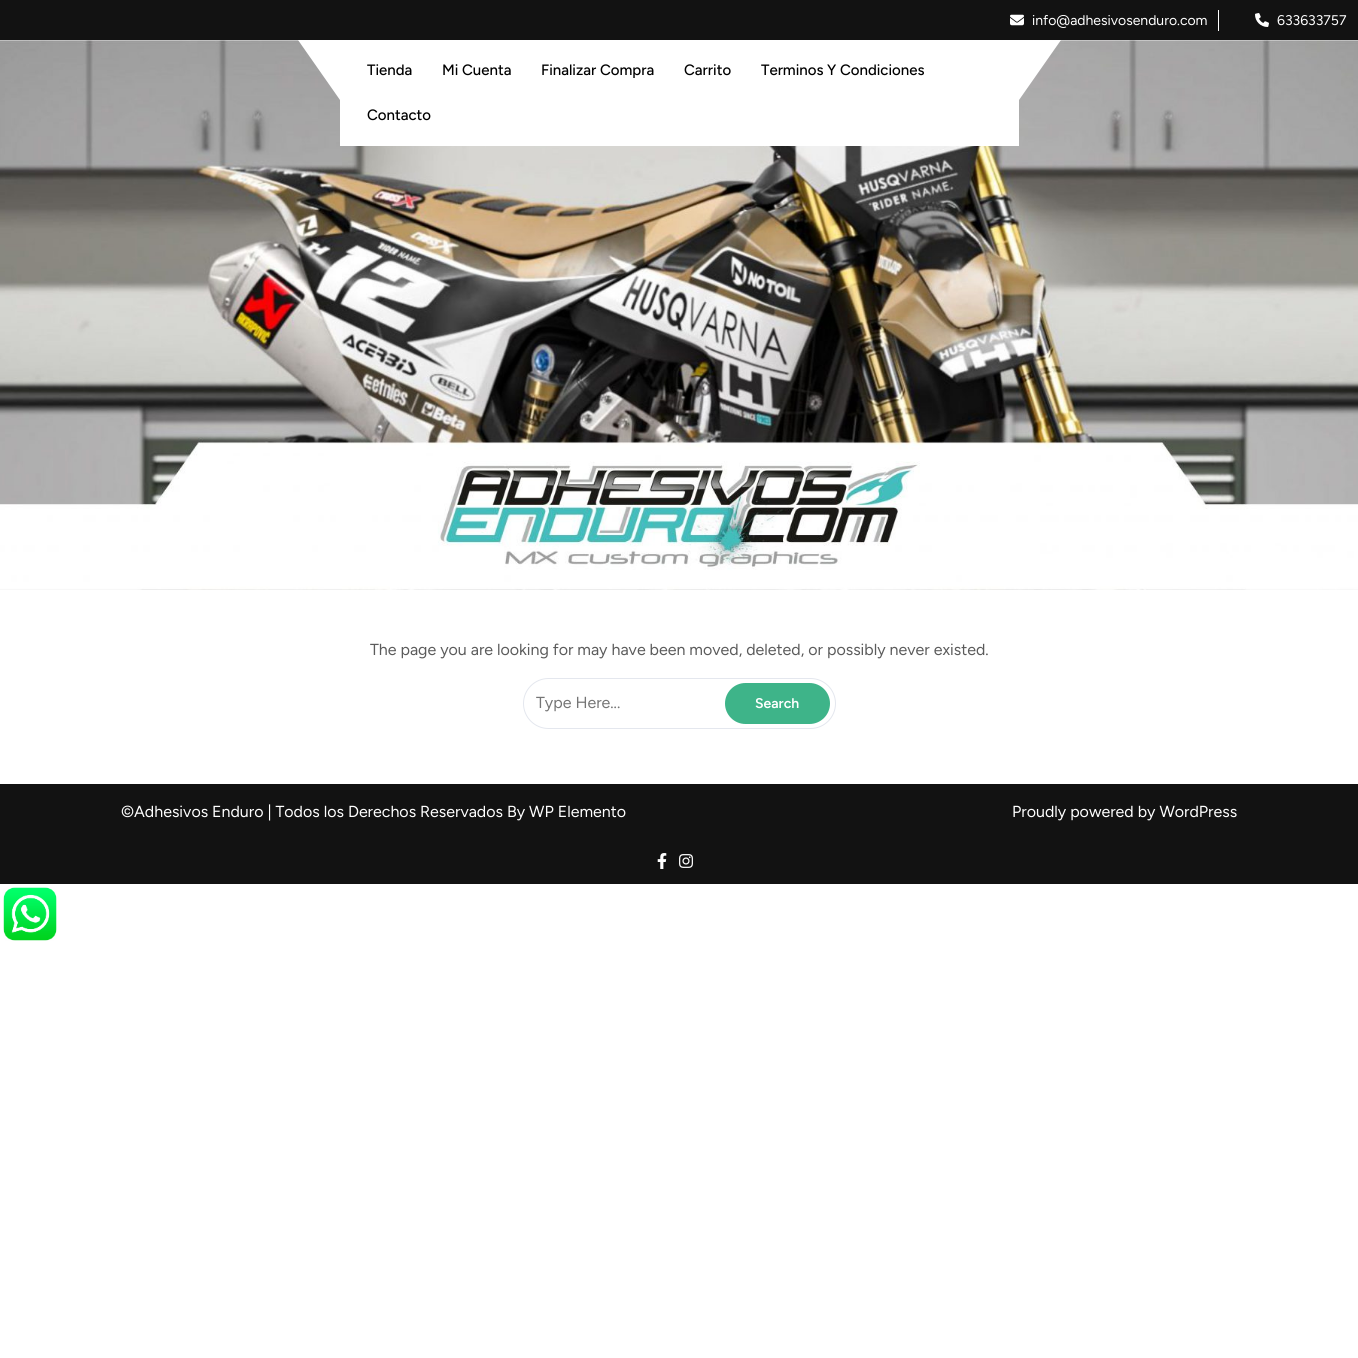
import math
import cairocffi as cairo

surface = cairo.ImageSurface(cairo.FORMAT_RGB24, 1358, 1358)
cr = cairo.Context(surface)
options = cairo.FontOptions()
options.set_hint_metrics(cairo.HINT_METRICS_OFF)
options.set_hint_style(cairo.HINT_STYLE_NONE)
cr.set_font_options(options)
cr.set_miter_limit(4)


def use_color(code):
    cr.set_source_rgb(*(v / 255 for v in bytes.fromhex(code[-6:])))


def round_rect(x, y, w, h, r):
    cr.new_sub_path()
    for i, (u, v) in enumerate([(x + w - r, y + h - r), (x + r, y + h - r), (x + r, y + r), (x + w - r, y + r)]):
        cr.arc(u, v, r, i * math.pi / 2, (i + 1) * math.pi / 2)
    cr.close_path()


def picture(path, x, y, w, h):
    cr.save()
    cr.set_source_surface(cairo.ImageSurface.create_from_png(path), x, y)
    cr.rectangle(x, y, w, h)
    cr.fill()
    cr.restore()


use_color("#ffffff")
cr.paint()
use_color("#121212")
cr.rectangle(0, 0, 1358, 40)
cr.fill()
use_color("#ffffff")
cr.rectangle(1218, 10, 1, 21)
cr.fill()
picture("img1.png", 1010, 14, 14, 12)
cr.select_font_face("Figtree")
cr.set_font_size(14)
cr.move_to(1032, 25)
cr.show_text("info@adhesivosenduro.com")
picture("img2.png", 1255, 13, 14, 14)
cr.move_to(1277, 25)
cr.show_text("633633757")
picture("img3.png", 0, 40, 1358, 550)
cr.rectangle(340, 40, 679, 106)
cr.fill()
cr.new_path()
cr.move_to(298, 40)
cr.line_to(340, 40)
cr.line_to(340, 100)
cr.close_path()
cr.fill()
cr.select_font_face("Figtree Medium")
cr.set_font_size(15)
use_color("#000000")
cr.move_to(367, 75)
cr.show_text("Tienda")
cr.move_to(442, 75)
cr.show_text("Mi Cuenta")
cr.move_to(541, 75)
cr.show_text("Finalizar Compra")
cr.move_to(684, 75)
cr.show_text("Carrito")
cr.move_to(761, 75)
cr.show_text("Terminos Y Condiciones")
cr.move_to(367, 120)
cr.show_text("Contacto")
use_color("#ffffff")
cr.new_path()
cr.move_to(1019, 40)
cr.line_to(1061, 40)
cr.line_to(1019, 100)
cr.close_path()
cr.fill()
cr.select_font_face("Figtree")
cr.set_font_size(16)
use_color("#5b5b5b")
cr.move_to(370, 655)
cr.show_text("The page you are looking for may have been moved, deleted, or possibly never existed.")
round_rect(523.5, 678.5, 312, 50, 25)
use_color("#e4e7ee")
cr.set_line_width(1)
cr.stroke()
use_color("#757575")
cr.move_to(536, 708)
cr.show_text("Type Here...")
use_color("#3eb489")
round_rect(725, 683, 105, 41, 20.5)
cr.fill()
cr.select_font_face("Figtree SemiBold")
cr.set_font_size(14)
use_color("#ffffff")
cr.move_to(755, 708)
cr.show_text("Search")
use_color("#121212")
cr.rectangle(0, 784, 1358, 100)
cr.fill()
cr.select_font_face("Figtree")
cr.set_font_size(16)
use_color("#ffffff")
cr.move_to(121, 817)
cr.show_text("©Adhesivos Enduro | Todos los Derechos Reservados By WP Elemento")
cr.move_to(1012, 817)
cr.show_text("Proudly powered by WordPress")
picture("img4.png", 657, 853, 10, 16)
picture("img5.png", 679, 854, 14, 14)
picture("img6.png", 3, 887, 54, 54)
surface.write_to_png("result.png")
